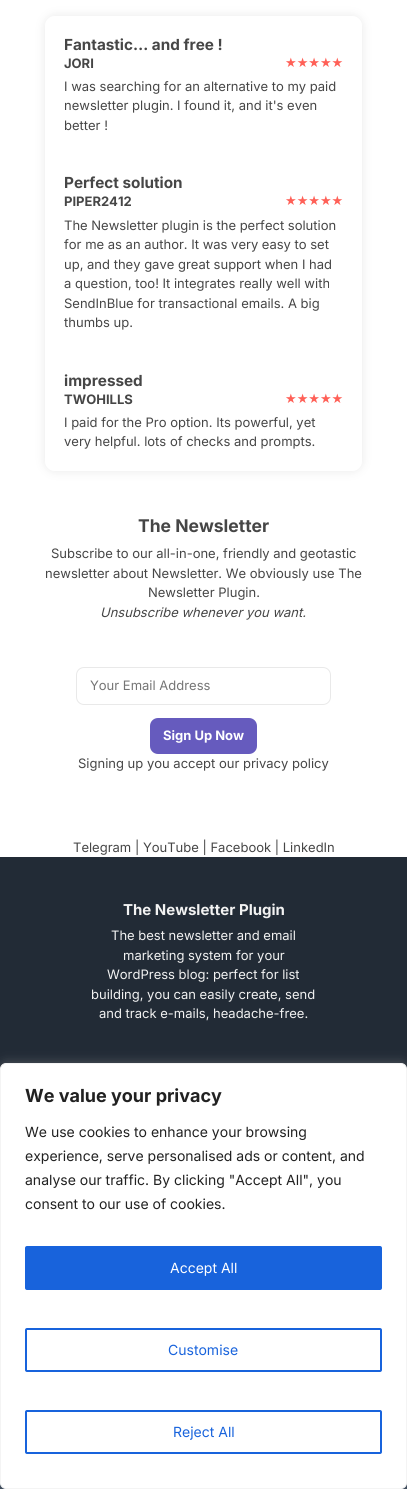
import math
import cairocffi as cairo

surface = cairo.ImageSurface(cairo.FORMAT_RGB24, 407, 1489)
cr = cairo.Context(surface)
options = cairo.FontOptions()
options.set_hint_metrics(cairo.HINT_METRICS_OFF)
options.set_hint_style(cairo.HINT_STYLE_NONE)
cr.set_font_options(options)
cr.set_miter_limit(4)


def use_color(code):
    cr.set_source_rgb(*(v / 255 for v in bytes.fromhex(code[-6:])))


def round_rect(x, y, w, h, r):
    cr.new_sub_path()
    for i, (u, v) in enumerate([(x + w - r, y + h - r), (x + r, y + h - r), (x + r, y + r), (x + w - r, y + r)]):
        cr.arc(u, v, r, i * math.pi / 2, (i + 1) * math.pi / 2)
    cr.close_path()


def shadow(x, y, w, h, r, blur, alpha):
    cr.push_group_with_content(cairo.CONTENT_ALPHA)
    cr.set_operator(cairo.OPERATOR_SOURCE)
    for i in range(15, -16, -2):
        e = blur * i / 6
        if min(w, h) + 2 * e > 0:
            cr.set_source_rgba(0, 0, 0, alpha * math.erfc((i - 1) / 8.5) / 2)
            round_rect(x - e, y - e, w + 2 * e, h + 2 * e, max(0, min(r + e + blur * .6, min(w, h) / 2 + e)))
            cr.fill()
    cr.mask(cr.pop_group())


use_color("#ffffff")
cr.paint()
cr.save()
cr.set_fill_rule(cairo.FILL_RULE_EVEN_ODD)
cr.new_path()
cr.move_to(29, 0)
cr.line_to(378, 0)
cr.line_to(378, 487)
cr.line_to(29, 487)
cr.close_path()
cr.move_to(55, 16)
cr.line_to(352, 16)
cr.curve_to(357.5, 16, 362, 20.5, 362, 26)
cr.line_to(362, 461)
cr.curve_to(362, 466.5, 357.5, 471, 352, 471)
cr.line_to(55, 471)
cr.curve_to(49.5, 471, 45, 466.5, 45, 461)
cr.line_to(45, 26)
cr.curve_to(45, 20.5, 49.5, 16, 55, 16)
cr.close_path()
cr.clip()
use_color("#e9e9e9")
shadow(45, 16, 317, 455, 10, 5, 1)
cr.restore()
cr.select_font_face("Inter", cairo.FONT_SLANT_NORMAL, cairo.FONT_WEIGHT_BOLD)
cr.set_font_size(15.25)
use_color("#464646")
cr.move_to(64, 50)
cr.show_text("Fantastic… and free !")
cr.set_font_size(13)
cr.move_to(64, 68)
cr.show_text("JORI")
cr.select_font_face("DejaVu Sans")
gradient = cairo.LinearGradient(285, 62, 343, 62)
gradient.add_color_stop_rgba(1, 1, 0.376, 0.341, 1)
gradient.add_color_stop_rgba(1, 0.914, 0.914, 0.914, 1)
cr.set_source(gradient)
cr.move_to(285, 67)
cr.show_text("★★★★★")
cr.select_font_face("Inter")
use_color("#464646")
cr.move_to(64, 91)
cr.show_text("I was searching for an alternative to my paid")
cr.move_to(64, 110)
cr.show_text("newsletter plugin. I found it, and it's even")
cr.move_to(64, 130)
cr.show_text("better !")
cr.select_font_face("Inter", cairo.FONT_SLANT_NORMAL, cairo.FONT_WEIGHT_BOLD)
cr.set_font_size(15.25)
cr.move_to(64, 188)
cr.show_text("Perfect solution")
cr.set_font_size(13)
cr.move_to(64, 206)
cr.show_text("PIPER2412")
cr.select_font_face("DejaVu Sans")
gradient = cairo.LinearGradient(285, 201, 343, 201)
gradient.add_color_stop_rgba(1, 1, 0.376, 0.341, 1)
gradient.add_color_stop_rgba(1, 0.914, 0.914, 0.914, 1)
cr.set_source(gradient)
cr.move_to(285, 205)
cr.show_text("★★★★★")
cr.select_font_face("Inter")
use_color("#464646")
cr.move_to(64, 230)
cr.show_text("The Newsletter plugin is the perfect solution")
cr.move_to(64, 249)
cr.show_text("for me as an author. It was very easy to set")
cr.move_to(64, 269)
cr.show_text("up, and they gave great support when I had")
cr.move_to(64, 288)
cr.show_text("a question, too! It integrates really well with")
cr.move_to(64, 308)
cr.show_text("SendInBlue for transactional emails. A big")
cr.move_to(64, 327)
cr.show_text("thumbs up.")
cr.select_font_face("Inter", cairo.FONT_SLANT_NORMAL, cairo.FONT_WEIGHT_BOLD)
cr.set_font_size(15.25)
cr.move_to(64, 386)
cr.show_text("impressed")
cr.set_font_size(13)
cr.move_to(64, 404)
cr.show_text("TWOHILLS")
cr.select_font_face("DejaVu Sans")
gradient = cairo.LinearGradient(285, 398, 343, 398)
gradient.add_color_stop_rgba(1, 1, 0.376, 0.341, 1)
gradient.add_color_stop_rgba(1, 0.914, 0.914, 0.914, 1)
cr.set_source(gradient)
cr.move_to(285, 403)
cr.show_text("★★★★★")
cr.select_font_face("Inter")
use_color("#464646")
cr.move_to(64, 427)
cr.show_text("I paid for the Pro option. Its powerful, yet")
cr.move_to(64, 446)
cr.show_text("very helpful. lots of checks and prompts.")
cr.select_font_face("Inter", cairo.FONT_SLANT_NORMAL, cairo.FONT_WEIGHT_BOLD)
cr.set_font_size(17.5)
cr.move_to(138, 532)
cr.show_text("The Newsletter")
cr.select_font_face("Inter")
cr.set_font_size(13)
cr.move_to(51, 558)
cr.show_text("Subscribe to our all-in-one, friendly and geotastic")
cr.move_to(45, 578)
cr.show_text("newsletter about Newsletter. We obviously use The")
cr.move_to(148, 597)
cr.show_text("Newsletter Plugin.")
cr.select_font_face("Inter", cairo.FONT_SLANT_ITALIC)
cr.move_to(100, 617)
cr.show_text("Unsubscribe whenever you want.")
round_rect(76.5, 667.5, 254, 37, 7.5)
use_color("#e9e9e9")
cr.set_line_width(1)
cr.stroke()
cr.select_font_face("Inter")
use_color("#757575")
cr.move_to(90, 690)
cr.show_text("Your Email Address")
use_color("#665bbe")
round_rect(150, 718, 107, 36, 8)
cr.fill()
cr.select_font_face("Inter", cairo.FONT_SLANT_NORMAL, cairo.FONT_WEIGHT_BOLD)
use_color("#ffffff")
cr.move_to(163, 740)
cr.show_text("Sign Up Now")
cr.select_font_face("Inter")
use_color("#464646")
cr.move_to(78, 768)
cr.show_text("Signing up you accept our privacy policy")
cr.move_to(73, 852)
cr.show_text("Telegram | YouTube | Facebook | LinkedIn")
use_color("#222b36")
cr.rectangle(0, 857, 407, 212)
cr.fill()
cr.select_font_face("Inter", cairo.FONT_SLANT_NORMAL, cairo.FONT_WEIGHT_BOLD)
cr.set_font_size(15)
use_color("#f2f2f2")
cr.move_to(123, 915)
cr.show_text("The Newsletter Plugin")
cr.select_font_face("Inter")
cr.set_font_size(13)
cr.move_to(111, 940)
cr.show_text("The best newsletter and email")
cr.move_to(123, 960)
cr.show_text("marketing system for your")
cr.move_to(107, 979)
cr.show_text("WordPress blog: perfect for list")
cr.move_to(91, 999)
cr.show_text("building, you can easily create, send")
cr.move_to(99, 1018)
cr.show_text("and track e-mails, headache-free.")
use_color("#364455")
cr.rectangle(0, 1483, 407, 6)
cr.fill()
use_color("#acabab")
shadow(0, 1062, 407, 426, 6, 5, 0.3)
use_color("#ffffff")
round_rect(0.5, 1063.5, 406, 425, 5.5)
cr.fill_preserve()
use_color("#f4f4f4")
cr.stroke()
cr.select_font_face("Inter", cairo.FONT_SLANT_NORMAL, cairo.FONT_WEIGHT_BOLD)
cr.set_font_size(18)
use_color("#212121")
cr.move_to(25, 1102)
cr.show_text("We value your privacy")
cr.select_font_face("Inter")
cr.set_font_size(14)
cr.move_to(25, 1137)
cr.show_text("We use cookies to enhance your browsing")
cr.move_to(25, 1161)
cr.show_text("experience, serve personalised ads or content, and")
cr.move_to(25, 1185)
cr.show_text("analyse our traffic. By clicking \"Accept All\", you")
cr.move_to(25, 1209)
cr.show_text("consent to our use of cookies.")
use_color("#1863dc")
round_rect(26, 1247, 355, 42, 1)
cr.fill_preserve()
cr.set_line_width(2)
cr.stroke()
use_color("#ffffff")
cr.move_to(170, 1273)
cr.show_text("Accept All")
round_rect(26, 1329, 355, 42, 1)
use_color("#1863dc")
cr.stroke()
cr.move_to(168, 1355)
cr.show_text("Customise")
round_rect(26, 1411, 355, 42, 1)
cr.stroke()
cr.move_to(173, 1437)
cr.show_text("Reject All")
surface.write_to_png("result.png")
